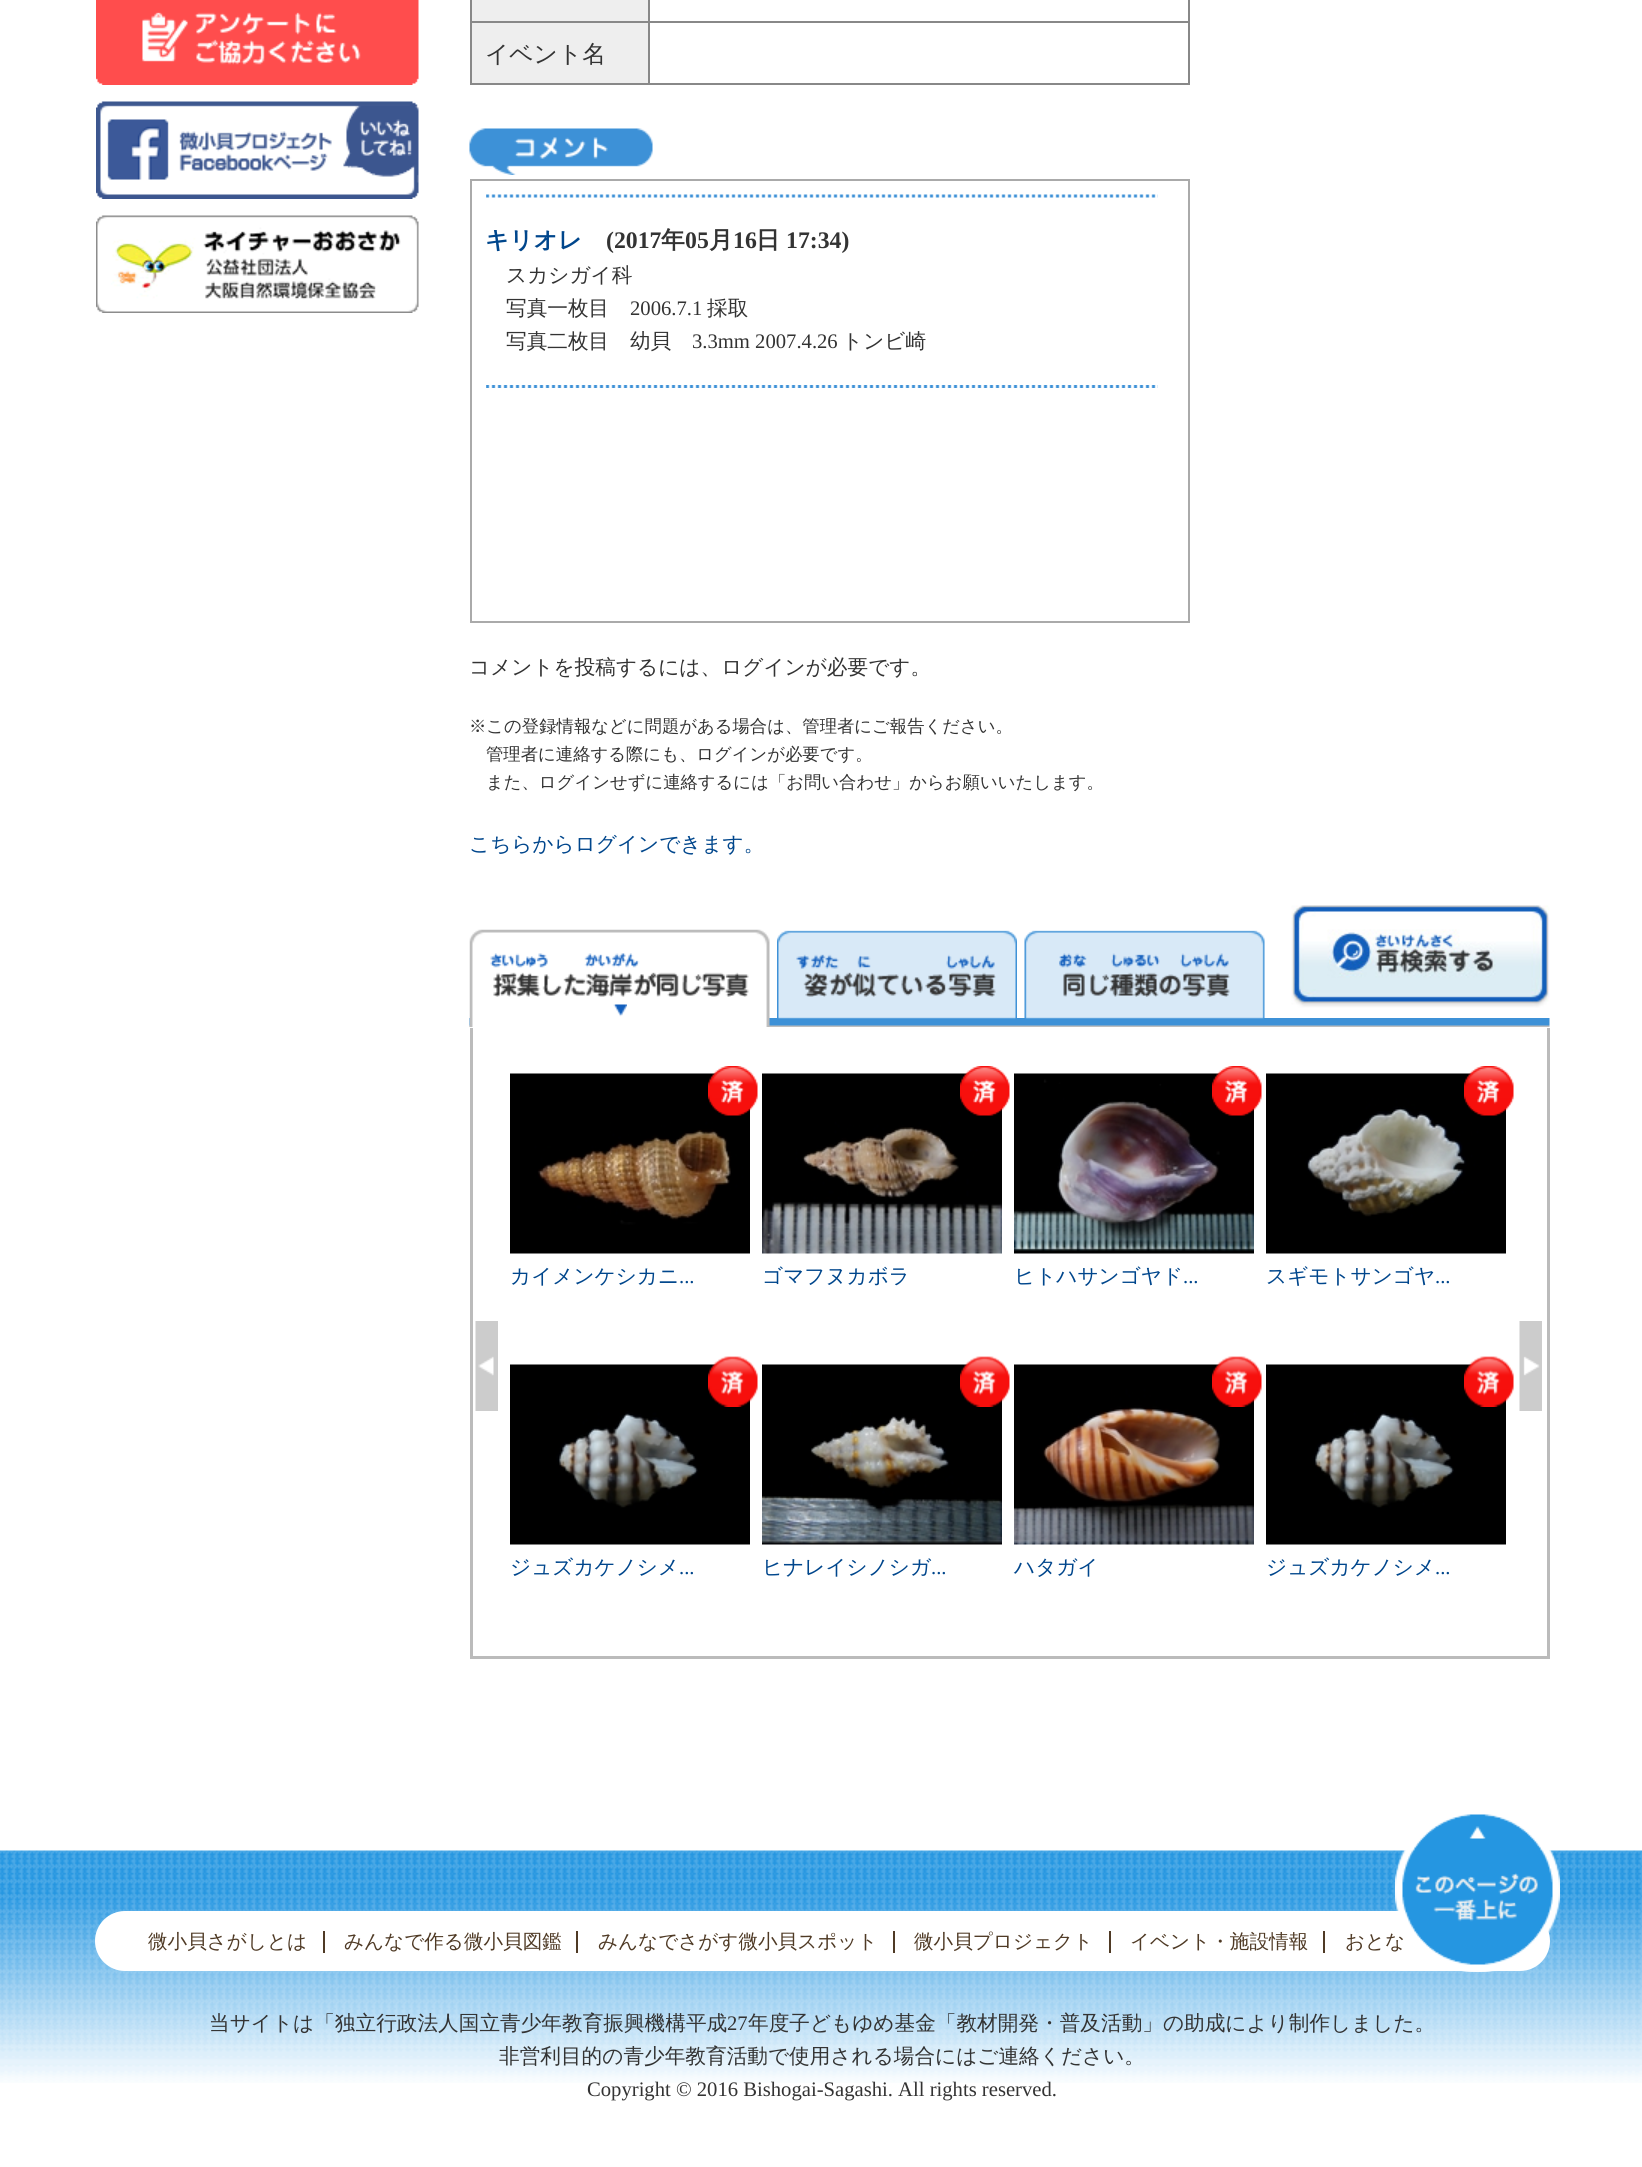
import math
import cairocffi as cairo

surface = cairo.ImageSurface(cairo.FORMAT_RGB24, 1642, 2167)
cr = cairo.Context(surface)
options = cairo.FontOptions()
options.set_hint_metrics(cairo.HINT_METRICS_OFF)
options.set_hint_style(cairo.HINT_STYLE_NONE)
cr.set_font_options(options)
cr.set_miter_limit(4)


def use_color(code):
    cr.set_source_rgb(*(v / 255 for v in bytes.fromhex(code[-6:])))


def round_rect(x, y, w, h, r):
    cr.new_sub_path()
    for i, (u, v) in enumerate([(x + w - r, y + h - r), (x + r, y + h - r), (x + r, y + r), (x + w - r, y + r)]):
        cr.arc(u, v, r, i * math.pi / 2, (i + 1) * math.pi / 2)
    cr.close_path()


def picture(path, x, y, w, h):
    cr.save()
    cr.set_source_surface(cairo.ImageSurface.create_from_png(path), x, y)
    cr.rectangle(x, y, w, h)
    cr.fill()
    cr.restore()


use_color("#ffffff")
cr.paint()
picture("img1.png", 96, 0, 323, 85)
picture("img2.png", 96, 101, 323, 98)
picture("img3.png", 96, 215, 323, 98)
use_color("#eeeeee")
cr.rectangle(472, 0, 176, 21)
cr.fill()
use_color("#888888")
cr.rectangle(1188, 0, 2, 84)
cr.fill()
cr.rectangle(648, 83, 542, 2)
cr.fill()
cr.rectangle(648, 21, 2, 63)
cr.fill()
cr.rectangle(648, 21, 542, 2)
cr.fill()
cr.rectangle(648, 0, 2, 23)
cr.fill()
cr.rectangle(470, 83, 180, 2)
cr.fill()
cr.rectangle(470, 21, 2, 63)
cr.fill()
cr.rectangle(470, 21, 180, 2)
cr.fill()
cr.rectangle(470, 0, 2, 23)
cr.fill()
use_color("#eeeeee")
cr.rectangle(472, 23, 176, 60)
cr.fill()
cr.select_font_face("WenQuanYi Zen Hei Medium")
cr.set_font_size(23.75)
use_color("#333333")
cr.move_to(485, 62)
cr.show_text("イベント名")
picture("img4.png", 469, 128, 184, 47)
cr.rectangle(471, 180, 718, 442)
use_color("#aaaaaa")
cr.stroke()
picture("img5.png", 486, 194, 672, 4)
cr.select_font_face("WenQuanYi Zen Hei", cairo.FONT_SLANT_NORMAL, cairo.FONT_WEIGHT_BOLD)
use_color("#00468c")
cr.move_to(485, 248)
cr.show_text("キリオレ")
cr.select_font_face("Liberation Serif", cairo.FONT_SLANT_NORMAL, cairo.FONT_WEIGHT_BOLD)
use_color("#333333")
cr.move_to(606, 248)
cr.show_text("(2017")
cr.select_font_face("WenQuanYi Zen Hei", cairo.FONT_SLANT_NORMAL, cairo.FONT_WEIGHT_BOLD)
cr.move_to(661, 248)
cr.show_text("年")
cr.select_font_face("Liberation Serif", cairo.FONT_SLANT_NORMAL, cairo.FONT_WEIGHT_BOLD)
cr.move_to(685, 248)
cr.show_text("05")
cr.select_font_face("WenQuanYi Zen Hei", cairo.FONT_SLANT_NORMAL, cairo.FONT_WEIGHT_BOLD)
cr.move_to(709, 248)
cr.show_text("月")
cr.select_font_face("Liberation Serif", cairo.FONT_SLANT_NORMAL, cairo.FONT_WEIGHT_BOLD)
cr.move_to(733, 248)
cr.show_text("16")
cr.select_font_face("WenQuanYi Zen Hei", cairo.FONT_SLANT_NORMAL, cairo.FONT_WEIGHT_BOLD)
cr.move_to(756, 248)
cr.show_text("日")
cr.select_font_face("Liberation Serif", cairo.FONT_SLANT_NORMAL, cairo.FONT_WEIGHT_BOLD)
cr.move_to(786, 248)
cr.show_text("17:34)")
picture("img6.png", 486, 385, 672, 3)
cr.select_font_face("WenQuanYi Zen Hei Medium")
cr.set_font_size(20.65)
cr.move_to(506, 282)
cr.show_text("スカシガイ科")
cr.move_to(506, 315)
cr.show_text("写真一枚目")
cr.select_font_face("Liberation Serif")
cr.move_to(630, 315)
cr.show_text("2006.7.1")
cr.select_font_face("WenQuanYi Zen Hei Medium")
cr.move_to(707, 315)
cr.show_text("採取")
cr.move_to(506, 348)
cr.show_text("写真二枚目　幼貝")
cr.select_font_face("Liberation Serif")
cr.move_to(692, 348)
cr.show_text("3.3mm 2007.4.26")
cr.select_font_face("WenQuanYi Zen Hei Medium")
cr.move_to(842, 348)
cr.show_text("トンビ崎")
cr.move_to(469, 674)
cr.show_text("コメントを投稿するには、ログインが必要です。")
cr.set_font_size(17.35)
cr.move_to(469, 732)
cr.show_text("※この登録情報などに問題がある場合は、管理者にご報告ください。")
cr.move_to(486, 760)
cr.show_text("管理者に連絡する際にも、ログインが必要です。")
cr.move_to(486, 788)
cr.show_text("また、ログインせずに連絡するには「お問い合わせ」からお願いいたします。")
cr.set_font_size(20.65)
use_color("#00468c")
cr.move_to(469, 851)
cr.show_text("こちらからログインできます。")
picture("img7.png", 1291, 905, 259, 103)
picture("img8.png", 469, 1018, 1081, 9)
picture("img9.png", 469, 929, 301, 98)
picture("img10.png", 490, 953, 259, 44)
picture("img11.png", 613, 1004, 14, 13)
picture("img12.png", 777, 930, 240, 89)
picture("img13.png", 796, 954, 200, 43)
picture("img14.png", 1024, 930, 241, 89)
picture("img15.png", 1059, 953, 171, 44)
use_color("#bbbbbb")
cr.rectangle(1547, 1028, 3, 631)
cr.fill()
cr.rectangle(470, 1656, 1080, 3)
cr.fill()
cr.rectangle(470, 1028, 3, 631)
cr.fill()
picture("img16.png", 475, 1321, 23, 90)
picture("img18.png", 510, 1073, 240, 181)
picture("img17.png", 708, 1066, 50, 50)
use_color("#00468c")
cr.move_to(510, 1283)
cr.show_text("カイメンケシカニ")
cr.select_font_face("Liberation Serif")
cr.move_to(679, 1283)
cr.show_text("...")
picture("img19.png", 762, 1073, 240, 181)
picture("img17.png", 960, 1066, 50, 50)
cr.select_font_face("WenQuanYi Zen Hei Medium")
cr.move_to(762, 1283)
cr.show_text("ゴマフヌカボラ")
picture("img20.png", 1014, 1073, 240, 181)
picture("img17.png", 1212, 1066, 50, 50)
cr.move_to(1014, 1283)
cr.show_text("ヒトハサンゴヤド")
cr.select_font_face("Liberation Serif")
cr.move_to(1183, 1283)
cr.show_text("...")
picture("img21.png", 1266, 1073, 240, 181)
picture("img17.png", 1464, 1066, 50, 50)
cr.select_font_face("WenQuanYi Zen Hei Medium")
cr.move_to(1266, 1283)
cr.show_text("スギモトサンゴヤ")
cr.select_font_face("Liberation Serif")
cr.move_to(1435, 1283)
cr.show_text("...")
picture("img23.png", 510, 1364, 240, 181)
picture("img22.png", 708, 1356, 50, 51)
cr.select_font_face("WenQuanYi Zen Hei Medium")
cr.move_to(510, 1574)
cr.show_text("ジュズカケノシメ")
cr.select_font_face("Liberation Serif")
cr.move_to(679, 1574)
cr.show_text("...")
picture("img24.png", 762, 1364, 240, 181)
picture("img22.png", 960, 1356, 50, 51)
cr.select_font_face("WenQuanYi Zen Hei Medium")
cr.move_to(762, 1574)
cr.show_text("ヒナレイシノシガ")
cr.select_font_face("Liberation Serif")
cr.move_to(931, 1574)
cr.show_text("...")
picture("img25.png", 1014, 1364, 240, 181)
picture("img22.png", 1212, 1356, 50, 51)
cr.select_font_face("WenQuanYi Zen Hei Medium")
cr.move_to(1014, 1574)
cr.show_text("ハタガイ")
picture("img23.png", 1266, 1364, 240, 181)
picture("img22.png", 1464, 1356, 50, 51)
cr.move_to(1266, 1574)
cr.show_text("ジュズカケノシメ")
cr.select_font_face("Liberation Serif")
cr.move_to(1435, 1574)
cr.show_text("...")
picture("img26.png", 1519, 1321, 23, 90)
picture("img28.png", 0, 1850, 1642, 233)
use_color("#ffffff")
round_rect(95, 1911, 1455, 60, 30)
cr.fill()
cr.select_font_face("WenQuanYi Zen Hei Medium")
cr.set_font_size(19.6)
use_color("#4f3a25")
cr.move_to(1345, 1948)
cr.show_text("おとな")
picture("img27.png", 1395, 1814, 165, 158)
cr.move_to(148, 1948)
cr.show_text("微小貝さがしとは")
cr.rectangle(323, 1931, 2, 22)
cr.fill()
cr.move_to(344, 1948)
cr.show_text("みんなで作る微小貝図鑑")
cr.rectangle(576, 1931, 2, 22)
cr.fill()
cr.move_to(598, 1948)
cr.show_text("みんなでさがす微小貝スポット")
cr.rectangle(893, 1931, 2, 22)
cr.fill()
cr.move_to(914, 1948)
cr.show_text("微小貝プロジェクト")
cr.rectangle(1109, 1931, 2, 22)
cr.fill()
cr.move_to(1130, 1948)
cr.show_text("イベント・施設情報")
cr.rectangle(1323, 1931, 2, 22)
cr.fill()
cr.set_font_size(20.65)
use_color("#333333")
cr.move_to(209, 2030)
cr.show_text("当サイトは「独立行政法人国立青少年教育振興機構平成")
cr.select_font_face("Liberation Serif")
cr.move_to(727, 2030)
cr.show_text("27")
cr.select_font_face("WenQuanYi Zen Hei Medium")
cr.move_to(748, 2030)
cr.show_text("年度子どもゆめ基金「教材開発・普及活動」の助成により制作しました。")
cr.move_to(499, 2063)
cr.show_text("非営利目的の青少年教育活動で使用される場合にはご連絡ください。")
cr.select_font_face("Liberation Serif")
cr.move_to(587, 2096)
cr.show_text("Copyright © 2016 Bishogai-Sagashi. All rights reserved.")
surface.write_to_png("result.png")
